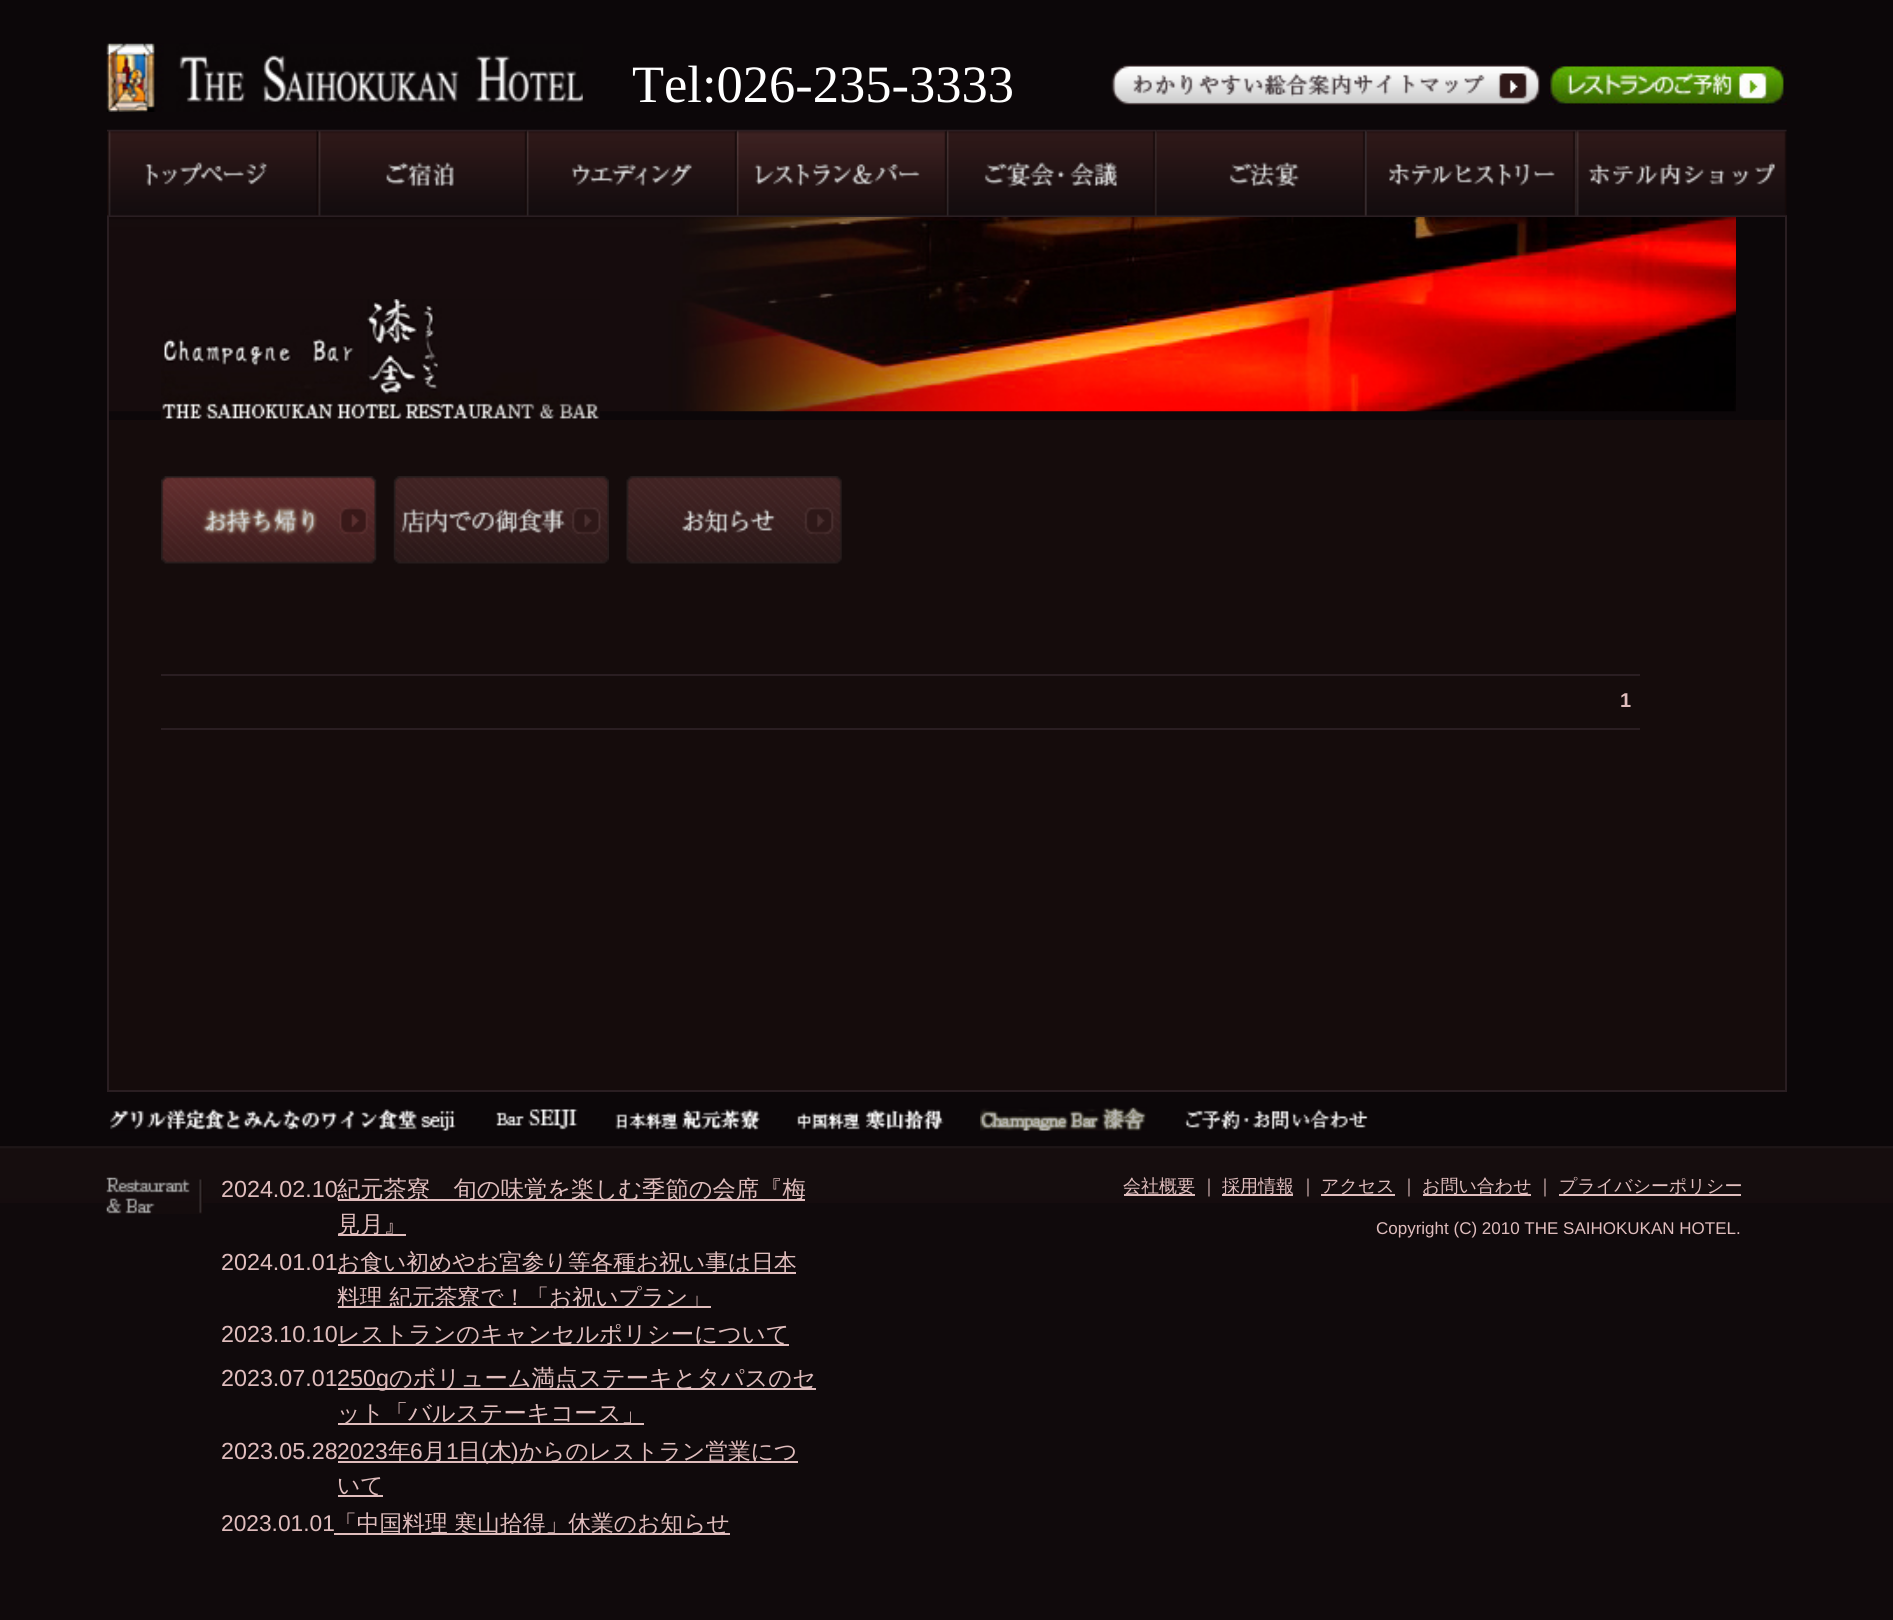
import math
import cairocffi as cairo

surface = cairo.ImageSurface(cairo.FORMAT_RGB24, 1893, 1620)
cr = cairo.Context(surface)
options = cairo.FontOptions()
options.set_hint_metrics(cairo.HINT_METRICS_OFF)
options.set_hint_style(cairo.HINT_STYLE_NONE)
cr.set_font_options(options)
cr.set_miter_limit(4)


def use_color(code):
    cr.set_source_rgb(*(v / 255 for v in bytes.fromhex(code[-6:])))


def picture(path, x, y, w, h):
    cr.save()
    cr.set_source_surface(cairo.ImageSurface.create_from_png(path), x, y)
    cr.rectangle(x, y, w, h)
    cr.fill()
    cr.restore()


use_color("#100a0c")
cr.paint()
use_color("#0c0709")
cr.rectangle(0, 0, 1893, 1146)
cr.fill()
picture("img1.png", 106, 43, 477, 69)
cr.select_font_face("Liberation Serif")
cr.set_font_size(52.5)
use_color("#ffffff")
cr.move_to(632, 102)
cr.show_text("Tel:026-235-3333")
picture("img2.png", 1111, 64, 429, 41)
picture("img3.png", 1549, 65, 238, 40)
use_color("#2a1e22")
cr.rectangle(107, 215, 1680, 2)
cr.fill()
cr.rectangle(107, 215, 2, 205)
cr.fill()
picture("img4.png", 107, 129, 210, 87)
picture("img5.png", 316, 129, 211, 87)
picture("img6.png", 526, 129, 211, 87)
picture("img7.png", 736, 129, 211, 87)
picture("img8.png", 946, 129, 211, 87)
picture("img9.png", 1156, 129, 211, 87)
picture("img10.png", 1366, 129, 211, 87)
cr.rectangle(1785, 215, 2, 877)
cr.fill()
picture("img11.png", 1577, 129, 210, 87)
picture("img12.png", 109, 217, 1627, 195)
picture("img13.png", 161, 299, 439, 121)
use_color("#150c0c")
cr.rectangle(109, 420, 1676, 670)
cr.fill()
use_color("#2a1e22")
cr.rectangle(107, 1090, 1680, 2)
cr.fill()
cr.rectangle(107, 420, 2, 672)
cr.fill()
picture("img14.png", 161, 476, 216, 88)
picture("img15.png", 393, 476, 216, 88)
picture("img16.png", 626, 476, 216, 88)
cr.rectangle(161, 674, 1479, 2)
cr.fill()
cr.rectangle(161, 728, 1479, 2)
cr.fill()
cr.select_font_face("Liberation Sans", cairo.FONT_SLANT_NORMAL, cairo.FONT_WEIGHT_BOLD)
cr.set_font_size(20)
use_color("#e0bdbd")
cr.move_to(1620, 707)
cr.show_text("1")
picture("img17.png", 110, 1109, 346, 22)
picture("img18.png", 496, 1109, 82, 21)
picture("img19.png", 615, 1109, 145, 22)
picture("img20.png", 797, 1109, 147, 22)
picture("img21.png", 980, 1107, 167, 24)
picture("img22.png", 1184, 1109, 184, 21)
picture("img23.png", 0, 1146, 1893, 57)
picture("img24.png", 106, 1177, 97, 37)
cr.select_font_face("Liberation Sans")
cr.set_font_size(23.3)
cr.move_to(221, 1197)
cr.show_text("2024.02.10")
cr.rectangle(338, 1199, 467, 2)
cr.fill()
cr.select_font_face("WenQuanYi Zen Hei Medium")
cr.move_to(337, 1197)
cr.show_text("紀元茶寮　旬の味覚を楽しむ季節の会席『梅")
cr.rectangle(338, 1234, 68, 2)
cr.fill()
cr.move_to(337, 1232)
cr.show_text("見月』")
cr.select_font_face("Liberation Sans")
cr.move_to(221, 1270)
cr.show_text("2024.01.01")
cr.rectangle(338, 1272, 458, 2)
cr.fill()
cr.select_font_face("WenQuanYi Zen Hei Medium")
cr.set_font_size(22.75)
cr.move_to(337, 1270)
cr.show_text("お食い初めやお宮参り等各種お祝い事は日本")
cr.rectangle(338, 1306, 373, 2)
cr.fill()
cr.move_to(337, 1305)
cr.show_text("料理 紀元茶寮で！「お祝いプラン」")
cr.select_font_face("Liberation Sans")
cr.set_font_size(23.3)
cr.move_to(221, 1342)
cr.show_text("2023.10.10")
cr.rectangle(338, 1344, 451, 2)
cr.fill()
cr.select_font_face("WenQuanYi Zen Hei Medium")
cr.move_to(337, 1342)
cr.show_text("レストランのキャンセルポリシーについて")
cr.select_font_face("Liberation Sans")
cr.move_to(221, 1386)
cr.show_text("2023.07.01")
cr.rectangle(338, 1388, 478, 2)
cr.fill()
cr.move_to(337, 1386)
cr.show_text("250g")
cr.select_font_face("WenQuanYi Zen Hei Medium")
cr.move_to(389, 1386)
cr.show_text("のボリューム満点ステーキとタパスのセ")
cr.rectangle(338, 1423, 306, 2)
cr.fill()
cr.move_to(337, 1421)
cr.show_text("ット「バルステーキコース」")
cr.select_font_face("Liberation Sans")
cr.move_to(221, 1459)
cr.show_text("2023.05.28")
cr.set_font_size(22.75)
cr.move_to(337, 1459)
cr.show_text("2023")
cr.rectangle(338, 1461, 460, 2)
cr.fill()
cr.select_font_face("WenQuanYi Zen Hei Medium")
cr.move_to(388, 1459)
cr.show_text("年")
cr.select_font_face("Liberation Sans")
cr.move_to(410, 1459)
cr.show_text("6")
cr.select_font_face("WenQuanYi Zen Hei Medium")
cr.move_to(423, 1459)
cr.show_text("月")
cr.select_font_face("Liberation Sans")
cr.move_to(446, 1459)
cr.show_text("1")
cr.select_font_face("WenQuanYi Zen Hei Medium")
cr.move_to(458, 1459)
cr.show_text("日")
cr.select_font_face("Liberation Sans")
cr.move_to(481, 1459)
cr.show_text("(")
cr.select_font_face("WenQuanYi Zen Hei Medium")
cr.move_to(489, 1459)
cr.show_text("木")
cr.select_font_face("Liberation Sans")
cr.move_to(511, 1459)
cr.show_text(")")
cr.select_font_face("WenQuanYi Zen Hei Medium")
cr.move_to(519, 1459)
cr.show_text("からのレストラン営業につ")
cr.rectangle(338, 1495, 45, 2)
cr.fill()
cr.move_to(337, 1493)
cr.show_text("いて")
cr.select_font_face("Liberation Sans")
cr.move_to(221, 1531)
cr.show_text("2023.01.01")
cr.rectangle(334, 1533, 396, 2)
cr.fill()
cr.select_font_face("WenQuanYi Zen Hei Medium")
cr.move_to(334, 1531)
cr.show_text("「中国料理 寒山拾得」休業のお知らせ")
cr.rectangle(1124, 1194, 71, 2)
cr.fill()
cr.set_font_size(18)
cr.move_to(1123, 1192)
cr.show_text("会社概要")
cr.move_to(1200, 1192)
cr.show_text("｜")
cr.rectangle(1222, 1194, 71, 2)
cr.fill()
cr.move_to(1222, 1192)
cr.show_text("採用情報")
cr.move_to(1299, 1192)
cr.show_text("｜")
cr.rectangle(1321, 1194, 74, 2)
cr.fill()
cr.move_to(1321, 1192)
cr.show_text("アクセス")
cr.move_to(1400, 1192)
cr.show_text("｜")
cr.rectangle(1423, 1194, 108, 2)
cr.fill()
cr.move_to(1422, 1192)
cr.show_text("お問い合わせ")
cr.move_to(1536, 1192)
cr.show_text("｜")
cr.rectangle(1559, 1194, 182, 2)
cr.fill()
cr.move_to(1559, 1192)
cr.show_text("プライバシーポリシー")
cr.select_font_face("Liberation Sans")
cr.set_font_size(17)
cr.move_to(1376, 1234)
cr.show_text("Copyright (C) 2010 THE SAIHOKUKAN HOTEL.")
surface.write_to_png("result.png")
